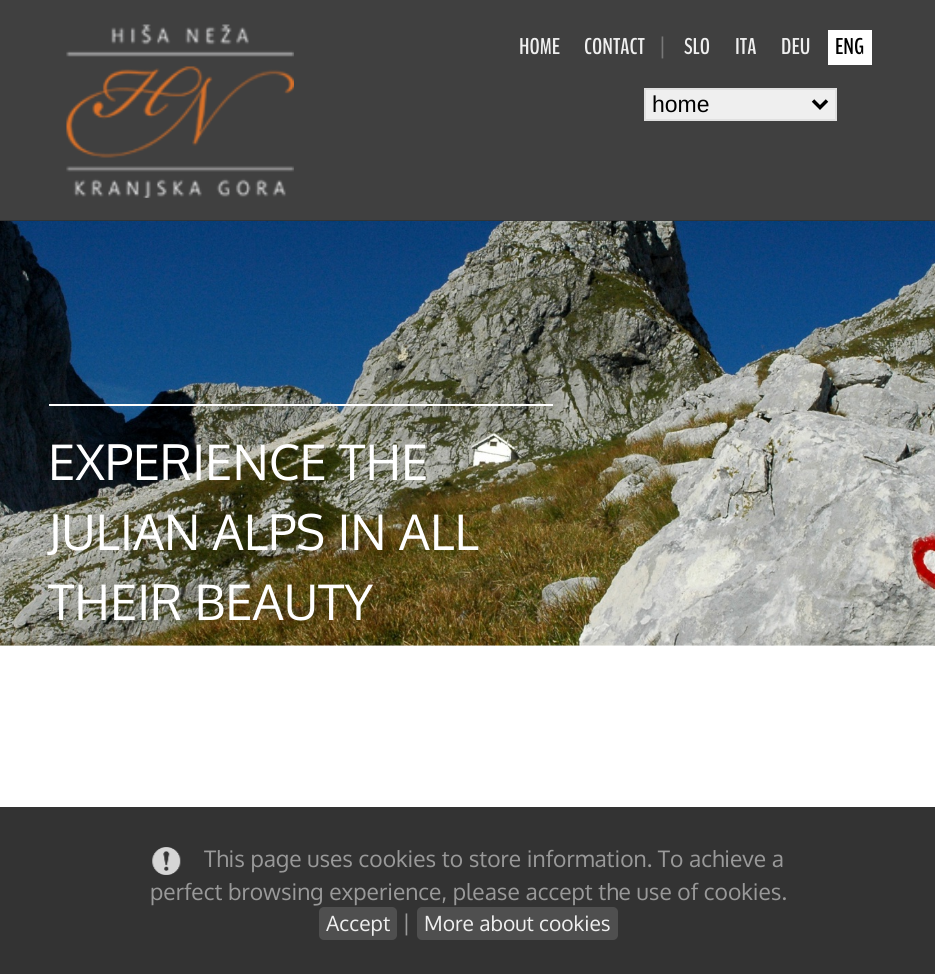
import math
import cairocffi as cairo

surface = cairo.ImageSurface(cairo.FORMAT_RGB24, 935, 974)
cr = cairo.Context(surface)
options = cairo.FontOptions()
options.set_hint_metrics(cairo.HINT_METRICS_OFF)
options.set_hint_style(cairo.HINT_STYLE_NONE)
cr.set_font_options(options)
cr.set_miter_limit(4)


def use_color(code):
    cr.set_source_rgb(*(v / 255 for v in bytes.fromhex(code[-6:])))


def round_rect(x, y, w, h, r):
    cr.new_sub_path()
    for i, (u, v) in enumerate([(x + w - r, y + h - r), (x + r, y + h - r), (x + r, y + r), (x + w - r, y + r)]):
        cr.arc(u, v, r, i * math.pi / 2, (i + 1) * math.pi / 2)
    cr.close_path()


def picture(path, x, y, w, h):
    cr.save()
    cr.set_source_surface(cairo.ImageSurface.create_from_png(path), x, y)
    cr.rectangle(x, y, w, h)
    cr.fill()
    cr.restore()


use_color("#ffffff")
cr.paint()
picture("img2.png", 0, 220, 935, 426)
cr.set_source_rgba(0, 0, 0, 0.75)
cr.rectangle(0, 0, 935, 221)
cr.fill()
picture("img1.png", 66, 24, 228, 174)
cr.select_font_face("BenchNine", cairo.FONT_SLANT_NORMAL, cairo.FONT_WEIGHT_BOLD)
cr.set_font_size(22.75)
use_color("#efefef")
cr.move_to(519, 54)
cr.show_text("HOME")
cr.move_to(584, 54)
cr.show_text("CONTACT")
cr.select_font_face("Oxygen")
use_color("#777777")
cr.move_to(658, 54)
cr.show_text("|")
cr.select_font_face("BenchNine", cairo.FONT_SLANT_NORMAL, cairo.FONT_WEIGHT_BOLD)
use_color("#efefef")
cr.move_to(684, 54)
cr.show_text("SLO")
cr.move_to(735, 54)
cr.show_text("ITA")
cr.move_to(781, 54)
cr.show_text("DEU")
use_color("#ffffff")
cr.rectangle(828, 30, 44, 35)
cr.fill()
use_color("#000000")
cr.move_to(835, 54)
cr.show_text("ENG")
use_color("#efefef")
cr.rectangle(645, 89, 191, 31)
cr.fill_preserve()
use_color("#e0e0e0")
cr.stroke()
cr.new_path()
cr.move_to(813, 100.5)
cr.line_to(820, 107.5)
cr.line_to(827, 100.5)
use_color("#000000")
cr.set_line_width(3.5)
cr.stroke()
cr.select_font_face("Liberation Sans")
cr.set_font_size(23)
cr.move_to(652, 112)
cr.show_text("home")
use_color("#ffffff")
cr.rectangle(49, 404, 504, 2)
cr.fill()
cr.select_font_face("Oxygen")
cr.set_font_size(49)
cr.move_to(48, 480)
cr.show_text("EXPERIENCE THE")
cr.move_to(48, 550)
cr.show_text("JULIAN ALPS IN ALL")
cr.move_to(48, 620)
cr.show_text("THEIR BEAUTY")
use_color("#333333")
cr.rectangle(0, 807, 935, 167)
cr.fill()
picture("img3.png", 152, 847, 29, 28)
cr.set_font_size(22.75)
use_color("#999999")
cr.move_to(204, 867)
cr.show_text("This page uses cookies to store information. To achieve a")
cr.move_to(150, 900)
cr.show_text("perfect browsing experience, please accept the use of cookies.")
use_color("#4f4f4f")
round_rect(319, 907, 78, 33, 5)
cr.fill()
cr.set_font_size(21)
use_color("#efefef")
cr.move_to(326, 931)
cr.show_text("Accept")
cr.set_font_size(22.75)
use_color("#999999")
cr.move_to(402, 931)
cr.show_text("|")
use_color("#4f4f4f")
round_rect(417, 907, 201, 33, 5)
cr.fill()
cr.set_font_size(21)
use_color("#efefef")
cr.move_to(424, 931)
cr.show_text("More about cookies")
surface.write_to_png("result.png")
